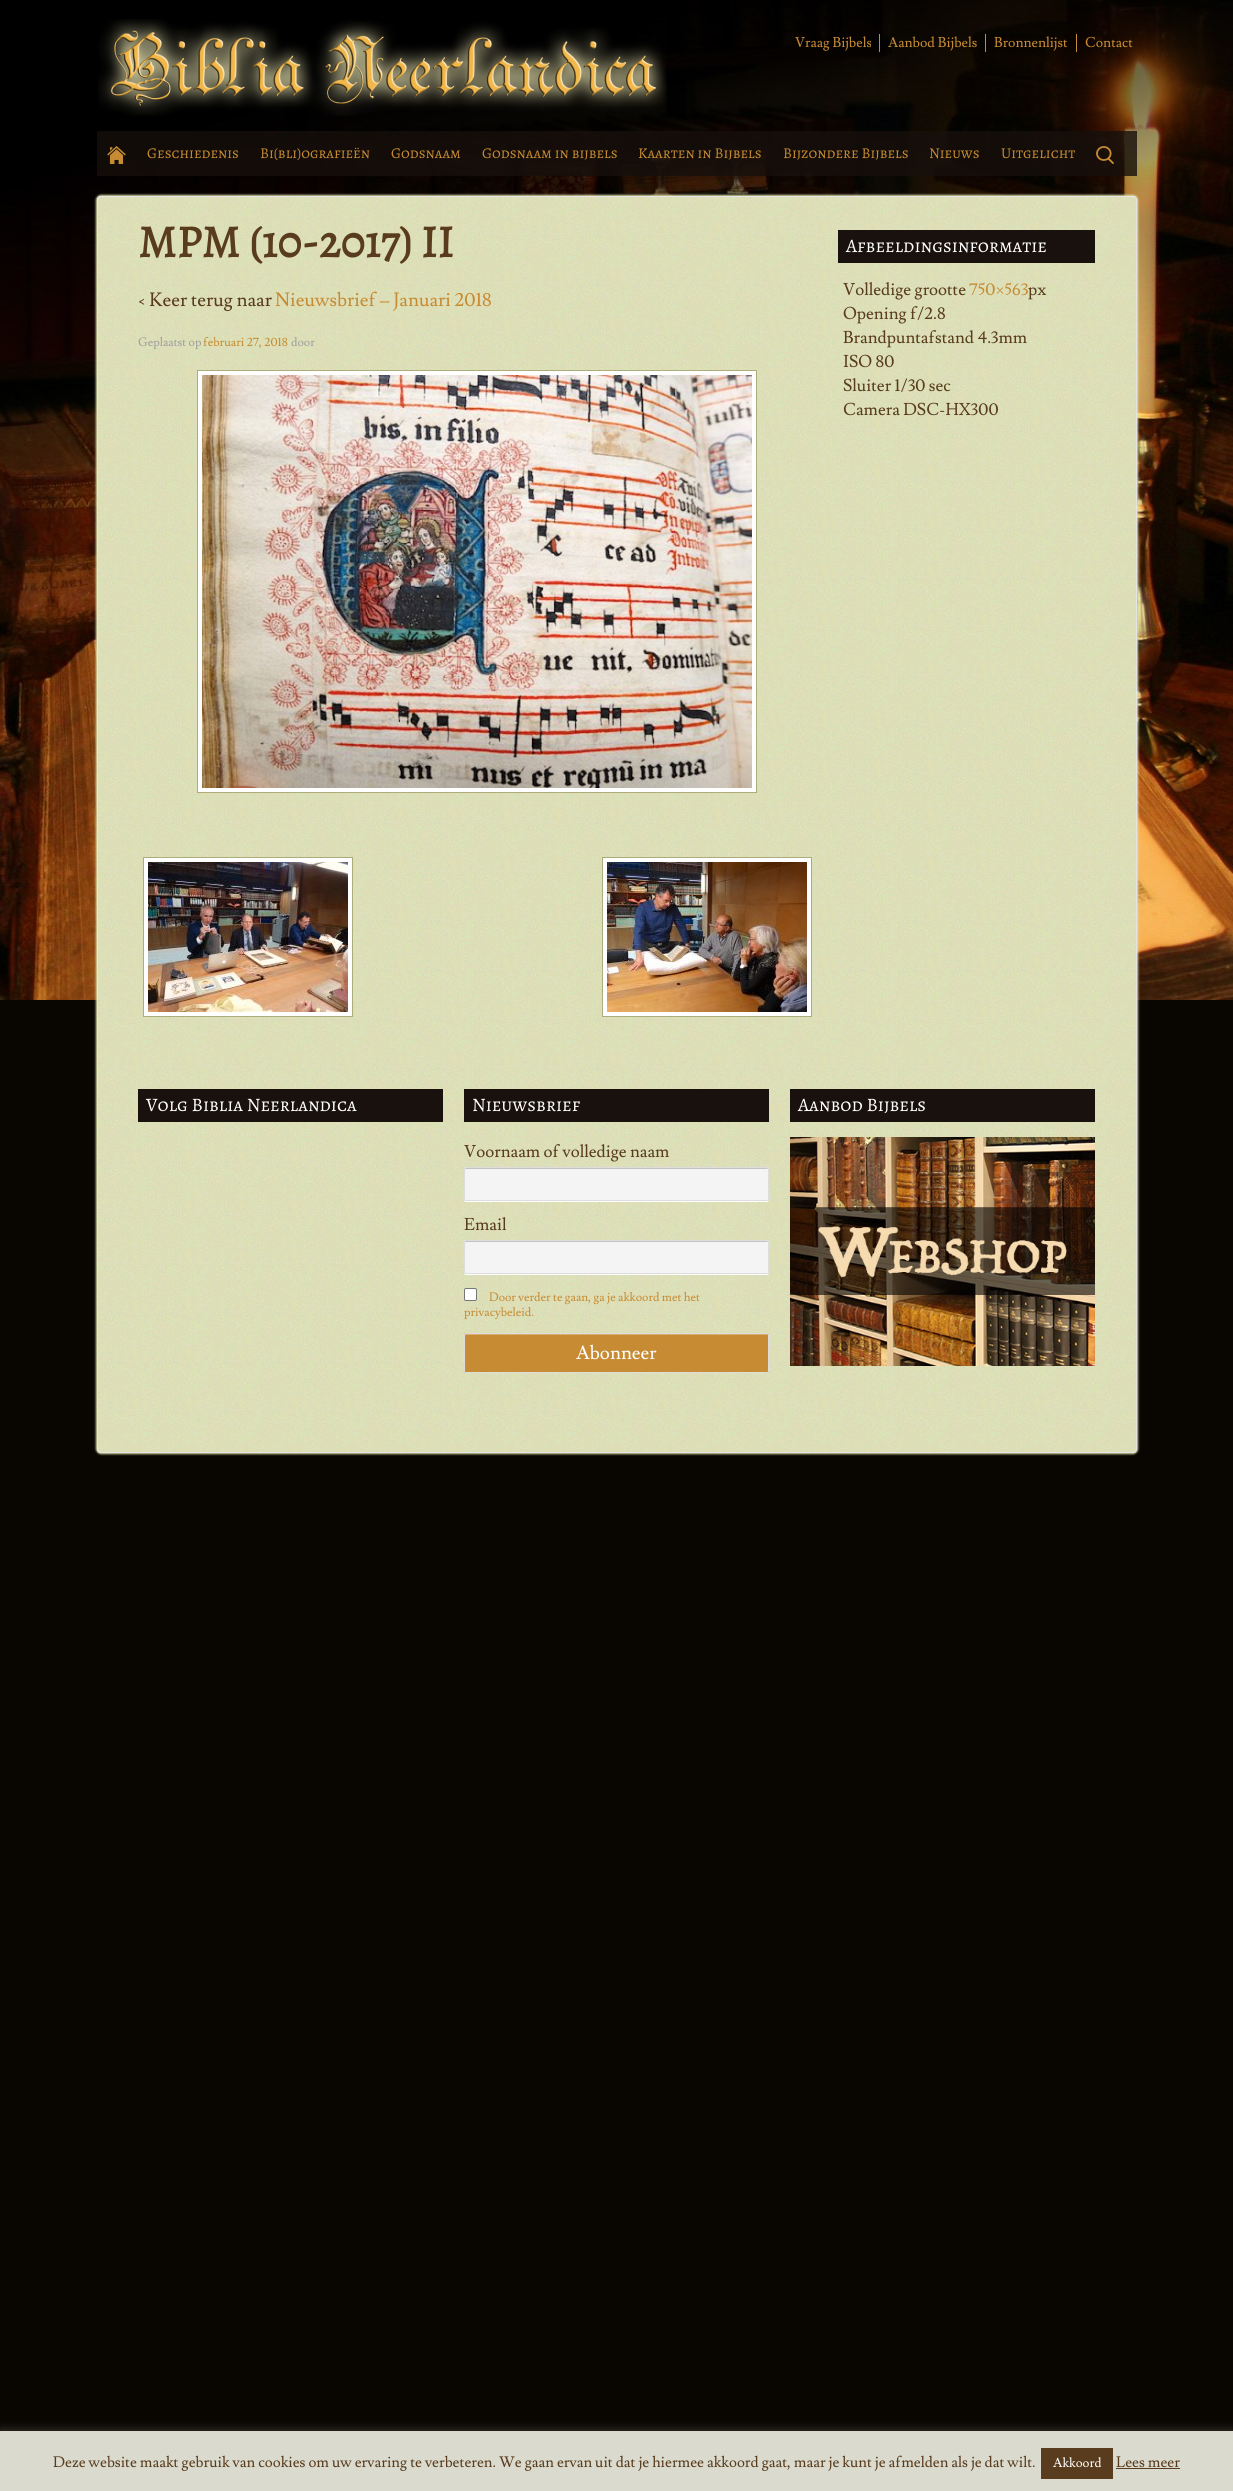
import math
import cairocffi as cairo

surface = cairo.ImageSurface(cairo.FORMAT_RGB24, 1233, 2491)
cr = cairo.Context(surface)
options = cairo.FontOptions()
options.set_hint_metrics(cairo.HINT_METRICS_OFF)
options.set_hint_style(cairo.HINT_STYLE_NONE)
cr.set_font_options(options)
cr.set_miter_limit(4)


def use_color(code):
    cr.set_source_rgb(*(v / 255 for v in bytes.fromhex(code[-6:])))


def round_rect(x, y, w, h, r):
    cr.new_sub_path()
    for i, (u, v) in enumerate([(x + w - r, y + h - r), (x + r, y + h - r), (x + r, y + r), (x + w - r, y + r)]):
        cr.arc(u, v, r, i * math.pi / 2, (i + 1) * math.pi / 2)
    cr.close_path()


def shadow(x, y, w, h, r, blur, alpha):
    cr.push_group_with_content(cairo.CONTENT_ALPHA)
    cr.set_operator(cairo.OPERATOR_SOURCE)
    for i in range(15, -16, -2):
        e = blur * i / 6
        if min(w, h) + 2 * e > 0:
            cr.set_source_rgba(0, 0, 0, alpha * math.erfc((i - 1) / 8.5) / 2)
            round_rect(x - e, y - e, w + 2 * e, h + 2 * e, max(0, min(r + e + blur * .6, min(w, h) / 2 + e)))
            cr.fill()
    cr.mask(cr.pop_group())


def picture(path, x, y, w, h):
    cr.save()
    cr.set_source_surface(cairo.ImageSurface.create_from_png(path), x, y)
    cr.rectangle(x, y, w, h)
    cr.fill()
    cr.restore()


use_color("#090500")
cr.paint()
picture("img1.png", 0, 0, 1233, 1000)
picture("img2.png", 98, 19, 569, 97)
cr.select_font_face("Lusitana")
cr.set_font_size(14)
use_color("#c78c33")
cr.move_to(795, 47)
cr.show_text("Vraag Bijbels")
cr.move_to(888, 47)
cr.show_text("Aanbod Bijbels")
cr.rectangle(879, 34, 1, 18)
cr.fill()
cr.move_to(994, 47)
cr.show_text("Bronnenlijst")
cr.rectangle(985, 34, 1, 18)
cr.fill()
cr.move_to(1085, 47)
cr.show_text("Contact")
cr.rectangle(1076, 34, 1, 18)
cr.fill()
cr.set_source_rgba(0.09, 0.063, 0.047, 0.8)
cr.rectangle(97, 131, 1040, 45)
cr.fill()
picture("img3.png", 107, 146, 19, 18)
cr.select_font_face("Alegreya SC")
cr.set_font_size(15)
use_color("#c78c33")
cr.move_to(147, 158)
cr.show_text("Geschiedenis")
cr.move_to(260, 158)
cr.show_text("Bi(bli)ografieën")
cr.move_to(391, 158)
cr.show_text("Godsnaam")
cr.move_to(482, 158)
cr.show_text("Godsnaam in bijbels")
cr.move_to(638, 158)
cr.show_text("Kaarten in Bijbels")
cr.move_to(783, 158)
cr.show_text("Bijzondere Bijbels")
cr.move_to(929, 158)
cr.show_text("Nieuws")
cr.move_to(1001, 158)
cr.show_text("Uitgelicht")
picture("img4.png", 1096, 146, 18, 18)
use_color("#e0e2ac")
shadow(96, 195, 1042, 1259, 5, 1, 1)
picture("img5.png", 97, 196, 1040, 1257)
round_rect(97.5, 196.5, 1039, 1256, 3.5)
use_color("#e5e5e5")
cr.set_line_width(1)
cr.stroke()
cr.select_font_face("Alegreya SC", cairo.FONT_SLANT_NORMAL, cairo.FONT_WEIGHT_BOLD)
cr.set_font_size(45.5)
use_color("#593c1d")
cr.move_to(138, 257)
cr.show_text("MPM (10-2017) II")
cr.select_font_face("Lusitana")
cr.set_font_size(19)
cr.move_to(138, 306)
cr.show_text("‹ Keer terug naar")
use_color("#c78c33")
cr.move_to(275, 306)
cr.show_text("Nieuwsbrief – Januari 2018")
cr.set_font_size(12)
use_color("#9f9f9f")
cr.move_to(138, 346)
cr.show_text("Geplaatst op")
use_color("#c78c33")
cr.move_to(203, 346)
cr.show_text("februari 27, 2018")
use_color("#9f9f9f")
cr.move_to(291, 346)
cr.show_text("door")
use_color("#ffffff")
cr.rectangle(197.5, 370.5, 559, 422)
cr.fill_preserve()
use_color("#adad7b")
cr.stroke()
picture("img6.png", 202, 375, 550, 413)
use_color("#ffffff")
cr.rectangle(143.5, 857.5, 209, 159)
cr.fill_preserve()
use_color("#adad7b")
cr.stroke()
picture("img7.png", 148, 862, 200, 150)
use_color("#ffffff")
cr.rectangle(602.5, 857.5, 209, 159)
cr.fill_preserve()
use_color("#adad7b")
cr.stroke()
picture("img8.png", 607, 862, 200, 150)
use_color("#19110d")
cr.rectangle(838, 230, 257, 33)
cr.fill()
cr.select_font_face("Alegreya SC")
cr.set_font_size(19)
use_color("#ffffff")
cr.move_to(846, 252)
cr.show_text("Afbeeldingsinformatie")
cr.select_font_face("Lusitana")
cr.set_font_size(17)
use_color("#593c1d")
cr.move_to(843, 295)
cr.show_text("Volledige grootte")
use_color("#c78c33")
cr.move_to(969, 295)
cr.show_text("750×563")
use_color("#593c1d")
cr.move_to(1028, 295)
cr.show_text("px")
cr.move_to(843, 319)
cr.show_text("Opening f/2.8")
cr.move_to(843, 343)
cr.show_text("Brandpuntafstand 4.3mm")
cr.move_to(843, 367)
cr.show_text("ISO 80")
cr.move_to(843, 391)
cr.show_text("Sluiter 1/30 sec")
cr.move_to(843, 415)
cr.show_text("Camera DSC-HX300")
use_color("#19110d")
cr.rectangle(138, 1089, 305, 33)
cr.fill()
cr.select_font_face("Alegreya SC")
cr.set_font_size(19)
use_color("#ffffff")
cr.move_to(146, 1111)
cr.show_text("Volg Biblia Neerlandica")
use_color("#19110d")
cr.rectangle(464, 1089, 305, 33)
cr.fill()
use_color("#ffffff")
cr.move_to(472, 1111)
cr.show_text("Nieuwsbrief")
cr.select_font_face("Lusitana")
cr.set_font_size(17)
use_color("#593c1d")
cr.move_to(464, 1157)
cr.show_text("Voornaam of volledige naam")
use_color("#ffffff")
cr.new_path()
cr.move_to(464, 1199)
cr.curve_to(464, 1200, 464, 1202, 466, 1202)
cr.line_to(768, 1202)
cr.line_to(769, 1199)
cr.curve_to(769, 1200, 768, 1201, 767, 1201)
cr.line_to(466, 1201)
cr.curve_to(465, 1201, 464, 1200, 464, 1199)
cr.close_path()
cr.fill()
use_color("#f4f4f4")
round_rect(464, 1167, 305, 34, 2)
cr.fill()
use_color("#c3c3c3")
cr.new_path()
cr.move_to(466, 1169)
cr.line_to(767, 1169)
cr.curve_to(768, 1169, 768, 1169, 768, 1170)
cr.curve_to(768, 1169, 768, 1168, 767, 1168)
cr.line_to(465, 1168)
cr.line_to(465, 1170)
cr.curve_to(465, 1169, 465, 1169, 466, 1169)
cr.close_path()
cr.fill()
round_rect(464.5, 1167.5, 304, 33, 1.5)
use_color("#dddddd")
cr.stroke()
use_color("#593c1d")
cr.move_to(464, 1230)
cr.show_text("Email")
use_color("#ffffff")
cr.new_path()
cr.move_to(464, 1272)
cr.curve_to(464, 1273, 464, 1275, 466, 1275)
cr.line_to(768, 1275)
cr.line_to(769, 1272)
cr.curve_to(769, 1273, 768, 1274, 767, 1274)
cr.line_to(466, 1274)
cr.curve_to(465, 1274, 464, 1273, 464, 1272)
cr.close_path()
cr.fill()
use_color("#f4f4f4")
round_rect(464, 1240, 305, 34, 2)
cr.fill()
use_color("#c3c3c3")
cr.new_path()
cr.move_to(466, 1242)
cr.line_to(767, 1242)
cr.curve_to(768, 1242, 768, 1242, 768, 1243)
cr.curve_to(768, 1242, 768, 1241, 767, 1241)
cr.line_to(465, 1241)
cr.line_to(465, 1243)
cr.curve_to(465, 1242, 465, 1242, 466, 1242)
cr.close_path()
cr.fill()
round_rect(464.5, 1240.5, 304, 33, 1.5)
use_color("#dddddd")
cr.stroke()
use_color("#ffffff")
round_rect(464.5, 1288.5, 12, 12, 1.5)
cr.fill_preserve()
use_color("#767676")
cr.stroke()
cr.set_font_size(12)
use_color("#c78c33")
cr.move_to(489, 1301)
cr.show_text("Door verder te gaan, ga je akkoord met het")
cr.move_to(464, 1316)
cr.show_text("privacybeleid.")
round_rect(464, 1333, 305, 40, 2)
cr.fill()
use_color("#d8af70")
cr.new_path()
cr.move_to(466, 1335)
cr.line_to(767, 1335)
cr.curve_to(768, 1335, 768, 1335, 768, 1336)
cr.curve_to(768, 1335, 768, 1334, 767, 1334)
cr.line_to(465, 1334)
cr.line_to(465, 1336)
cr.curve_to(465, 1335, 465, 1335, 466, 1335)
cr.close_path()
cr.fill()
round_rect(464.5, 1333.5, 304, 39, 1.5)
use_color("#dddddd")
cr.stroke()
cr.set_font_size(19)
use_color("#ffffff")
cr.move_to(576, 1359)
cr.show_text("Abonneer")
use_color("#19110d")
cr.rectangle(790, 1089, 305, 33)
cr.fill()
cr.select_font_face("Alegreya SC")
use_color("#ffffff")
cr.move_to(798, 1111)
cr.show_text("Aanbod Bijbels")
picture("img9.png", 790, 1137, 305, 229)
use_color("#acabab")
shadow(0, 2430, 1233, 60, 0, 5, 0.3)
use_color("#dadbce")
cr.rectangle(0, 2431, 1233, 60)
cr.fill()
cr.select_font_face("Lusitana")
cr.set_font_size(15)
use_color("#593c1d")
cr.move_to(53, 2467)
cr.show_text("Deze website maakt gebruik van cookies om uw ervaring te verbeteren. We gaan ervan uit dat je hiermee akkoord gaat, maar je kunt je afmelden als je dat wilt.")
cr.rectangle(1041, 2448, 72, 31)
cr.fill()
cr.set_font_size(13)
use_color("#ffffff")
cr.move_to(1053, 2467)
cr.show_text("Akkoord")
cr.set_font_size(15)
use_color("#593c1d")
cr.move_to(1116, 2467)
cr.show_text("Lees meer")
cr.rectangle(1116, 2468, 64, 1)
cr.fill()
surface.write_to_png("result.png")
